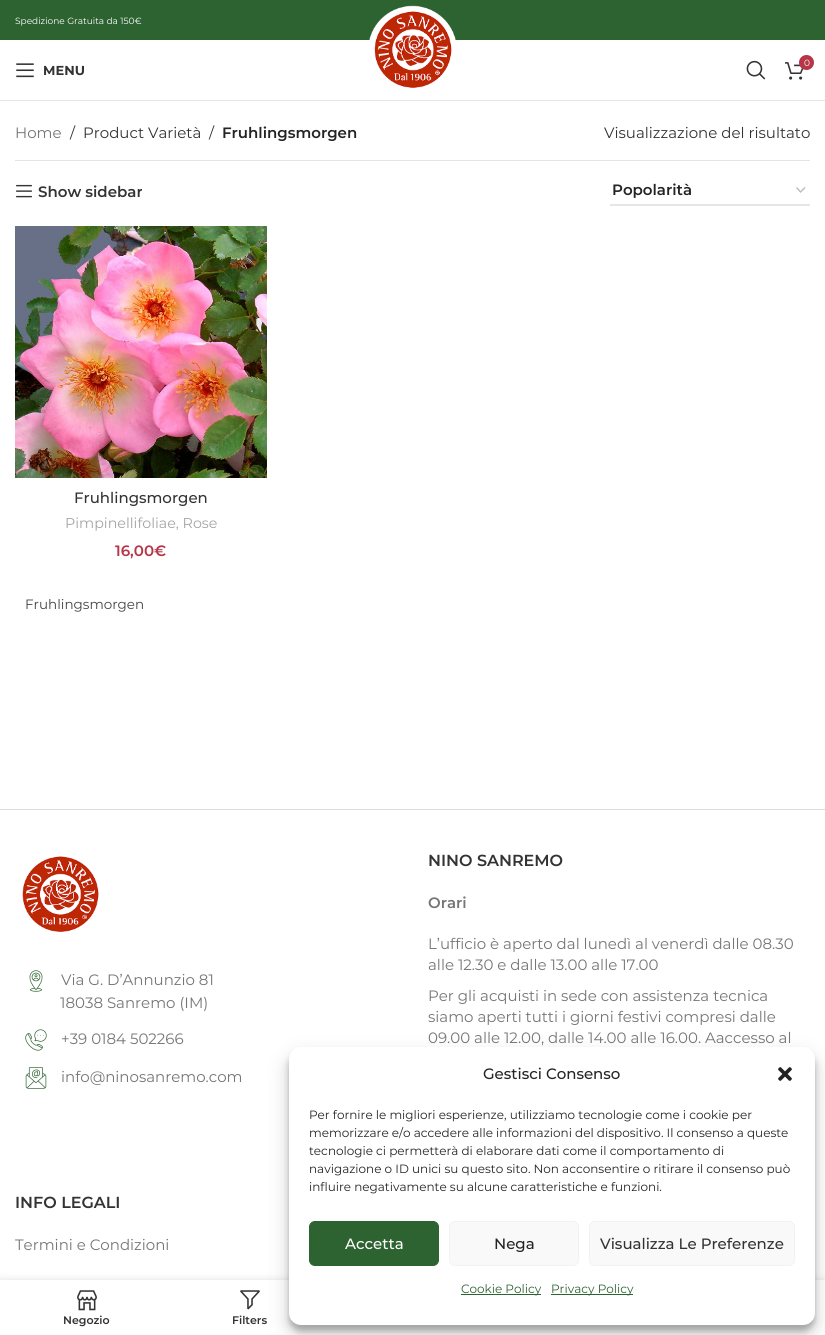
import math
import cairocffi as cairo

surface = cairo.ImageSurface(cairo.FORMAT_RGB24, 825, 1335)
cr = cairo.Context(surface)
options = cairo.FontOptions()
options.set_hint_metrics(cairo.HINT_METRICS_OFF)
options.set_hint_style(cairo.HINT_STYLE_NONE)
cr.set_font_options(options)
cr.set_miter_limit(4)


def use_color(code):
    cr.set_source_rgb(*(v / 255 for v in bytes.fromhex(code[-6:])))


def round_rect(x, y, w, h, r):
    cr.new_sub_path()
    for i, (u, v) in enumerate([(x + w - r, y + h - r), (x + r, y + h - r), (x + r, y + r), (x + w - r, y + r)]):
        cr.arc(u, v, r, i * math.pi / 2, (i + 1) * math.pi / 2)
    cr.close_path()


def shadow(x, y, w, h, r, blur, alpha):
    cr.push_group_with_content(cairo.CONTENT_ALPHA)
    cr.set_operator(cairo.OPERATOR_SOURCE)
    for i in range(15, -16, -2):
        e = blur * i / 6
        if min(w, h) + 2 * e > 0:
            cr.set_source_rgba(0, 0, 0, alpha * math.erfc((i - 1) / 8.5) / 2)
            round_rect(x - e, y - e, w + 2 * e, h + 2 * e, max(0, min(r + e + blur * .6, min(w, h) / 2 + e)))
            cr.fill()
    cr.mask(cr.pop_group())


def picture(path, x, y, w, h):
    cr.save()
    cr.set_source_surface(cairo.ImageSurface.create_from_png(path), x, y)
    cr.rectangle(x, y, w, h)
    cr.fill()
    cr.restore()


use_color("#ffffff")
cr.paint()
use_color("#2d6231")
cr.rectangle(0, 0, 825, 40)
cr.fill()
cr.select_font_face("Montserrat")
cr.set_font_size(9)
use_color("#ffffff")
cr.move_to(15, 24)
cr.show_text("Spedizione Gratuita da 150€")
use_color("#e6e6e6")
cr.rectangle(0, 100, 825, 1)
cr.fill()
picture("img1.png", 369, 5, 87, 83)
picture("img2.png", 746, 60, 20, 20)
picture("img3.png", 785, 62, 19, 18)
use_color("#b63546")
cr.arc(806.5, 62.5, 7.5, 0, 2 * math.pi)
cr.fill()
use_color("#ffffff")
cr.move_to(804, 66)
cr.show_text("0")
picture("img4.png", 16, 63, 18, 15)
cr.select_font_face("Montserrat", cairo.FONT_SLANT_NORMAL, cairo.FONT_WEIGHT_BOLD)
cr.set_font_size(13)
use_color("#333333")
cr.move_to(43, 75)
cr.show_text("MENU")
use_color("#e4e4e4")
cr.rectangle(15, 160, 795, 1)
cr.fill()
cr.select_font_face("Montserrat")
cr.set_font_size(15)
use_color("#767676")
cr.move_to(15, 138)
cr.show_text("Home")
use_color("#333333")
cr.move_to(70, 138)
cr.show_text("/")
cr.move_to(83, 138)
cr.show_text("Product Varietà")
cr.move_to(209, 138)
cr.show_text("/")
cr.select_font_face("Montserrat SemiBold")
use_color("#242424")
cr.move_to(222, 138)
cr.show_text("Fruhlingsmorgen")
cr.select_font_face("Montserrat")
use_color("#333333")
cr.move_to(604, 138)
cr.show_text("Visualizzazione del risultato")
picture("img5.png", 16, 184, 16, 14)
cr.select_font_face("Montserrat SemiBold")
cr.move_to(38, 197)
cr.show_text("Show sidebar")
cr.new_path()
cr.move_to(796.5, 187.5)
cr.line_to(800.5, 192)
cr.line_to(805, 187.5)
use_color("#bbbbbb")
cr.set_line_width(1.4)
cr.stroke()
use_color("#e6e6e6")
cr.rectangle(610, 204, 200, 2)
cr.fill()
use_color("#242424")
cr.move_to(612, 195)
cr.show_text("Popolarità")
picture("img6.png", 15, 226, 252, 252)
cr.select_font_face("Montserrat Medium")
use_color("#333333")
cr.move_to(74, 503)
cr.show_text("Fruhlingsmorgen")
cr.select_font_face("Montserrat")
cr.set_font_size(14.25)
use_color("#a5a5a5")
cr.move_to(65, 528)
cr.show_text("Pimpinellifoliae, Rose")
cr.select_font_face("Montserrat SemiBold")
cr.set_font_size(15)
use_color("#b63546")
cr.move_to(115, 556)
cr.show_text("16,00€")
cr.select_font_face("Montserrat")
cr.set_font_size(13.5)
use_color("#444444")
cr.move_to(25, 609)
cr.show_text("Fruhlingsmorgen")
use_color("#dddddd")
cr.rectangle(0, 809, 825, 1)
cr.fill()
picture("img7.png", 22, 856, 77, 76)
picture("img8.png", 29, 970, 14, 22)
cr.set_font_size(15)
use_color("#767676")
cr.move_to(61, 985)
cr.show_text("Via G. D’Annunzio 81")
cr.move_to(60, 1008)
cr.show_text("18038 Sanremo (IM)")
picture("img9.png", 25, 1029, 22, 22)
cr.move_to(61, 1044)
cr.show_text("+39 0184 502266")
picture("img10.png", 25, 1067, 22, 22)
cr.move_to(61, 1082)
cr.show_text("info@ninosanremo.com")
cr.select_font_face("Montserrat SemiBold")
cr.set_font_size(16)
use_color("#333333")
cr.move_to(428, 866)
cr.show_text("NINO SANREMO")
cr.set_font_size(15)
use_color("#767676")
cr.move_to(428, 908)
cr.show_text("Orari")
cr.select_font_face("Montserrat")
cr.move_to(428, 949)
cr.show_text("L’ufficio è aperto dal lunedì al venerdì dalle 08.30")
cr.move_to(428, 970)
cr.show_text("alle 12.30 e dalle 13.00 alle 17.00")
cr.move_to(428, 1001)
cr.show_text("Per gli acquisti in sede con assistenza tecnica")
cr.move_to(428, 1022)
cr.show_text("siamo aperti tutti i giorni festivi compresi dalle")
cr.move_to(428, 1043)
cr.show_text("09.00 alle 12.00, dalle 14.00 alle 16.00. Aaccesso al")
cr.select_font_face("Montserrat SemiBold")
cr.set_font_size(16)
use_color("#333333")
cr.move_to(15, 1208)
cr.show_text("INFO LEGALI")
cr.select_font_face("Montserrat")
cr.set_font_size(15)
use_color("#767676")
cr.move_to(15, 1250)
cr.show_text("Termini e Condizioni")
use_color("#000000")
shadow(0, 1280, 825, 55, 0, 4.5, 0.12)
use_color("#ffffff")
cr.rectangle(0, 1280, 825, 55)
cr.fill()
use_color("#000000")
shadow(289, 1053, 526, 278, 12, 3, 0.23)
picture("img13.png", 240, 1290, 20, 20)
shadow(289, 1057, 526, 278, 12, 10, 0.19)
use_color("#ffffff")
round_rect(289, 1047, 526, 278, 12)
cr.fill()
cr.select_font_face("Montserrat Medium")
use_color("#242424")
cr.move_to(483, 1079)
cr.show_text("Gestisci Consenso")
picture("img11.png", 778, 1067, 14, 14)
cr.select_font_face("Montserrat")
cr.set_font_size(12)
cr.move_to(309, 1119)
cr.show_text("Per fornire le migliori esperienze, utilizziamo tecnologie come i cookie per")
cr.move_to(309, 1137)
cr.show_text("memorizzare e/o accedere alle informazioni del dispositivo. Il consenso a queste")
cr.move_to(309, 1155)
cr.show_text("tecnologie ci permetterà di elaborare dati come il comportamento di")
cr.move_to(309, 1173)
cr.show_text("navigazione o ID unici su questo sito. Non acconsentire o ritirare il consenso può")
cr.move_to(309, 1191)
cr.show_text("influire negativamente su alcune caratteristiche e funzioni.")
use_color("#2d6231")
round_rect(309.5, 1221.5, 129, 44, 5.5)
cr.fill_preserve()
cr.set_line_width(1)
cr.stroke()
cr.select_font_face("Montserrat Medium")
cr.set_font_size(15)
use_color("#ffffff")
cr.move_to(345, 1249)
cr.show_text("Accetta")
use_color("#f9f9f9")
round_rect(449.5, 1221.5, 129, 44, 5.5)
cr.fill_preserve()
use_color("#f2f2f2")
cr.stroke()
use_color("#242424")
cr.move_to(494, 1249)
cr.show_text("Nega")
use_color("#f9f9f9")
round_rect(589.5, 1221.5, 205, 44, 5.5)
cr.fill_preserve()
use_color("#f2f2f2")
cr.stroke()
use_color("#333333")
cr.move_to(600, 1249)
cr.show_text("Visualizza Le Preferenze")
use_color("#2d6231")
cr.rectangle(461, 1294, 80, 1)
cr.fill()
cr.select_font_face("Montserrat")
cr.set_font_size(12)
cr.move_to(461, 1293)
cr.show_text("Cookie Policy")
cr.rectangle(551, 1294, 82, 1)
cr.fill()
cr.move_to(551, 1293)
cr.show_text("Privacy Policy")
picture("img12.png", 77, 1290, 20, 21)
cr.select_font_face("Montserrat SemiBold")
cr.set_font_size(11)
use_color("#333333")
cr.move_to(63, 1324)
cr.show_text("Negozio")
cr.move_to(232, 1324)
cr.show_text("Filters")
surface.write_to_png("result.png")
